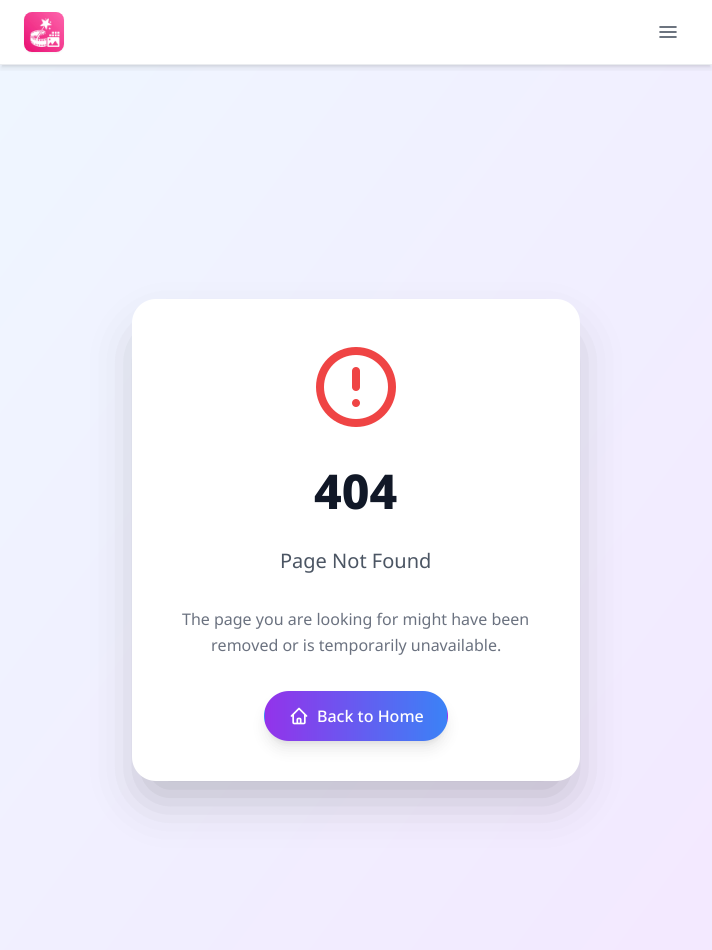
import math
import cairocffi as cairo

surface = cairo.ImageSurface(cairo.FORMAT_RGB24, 712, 950)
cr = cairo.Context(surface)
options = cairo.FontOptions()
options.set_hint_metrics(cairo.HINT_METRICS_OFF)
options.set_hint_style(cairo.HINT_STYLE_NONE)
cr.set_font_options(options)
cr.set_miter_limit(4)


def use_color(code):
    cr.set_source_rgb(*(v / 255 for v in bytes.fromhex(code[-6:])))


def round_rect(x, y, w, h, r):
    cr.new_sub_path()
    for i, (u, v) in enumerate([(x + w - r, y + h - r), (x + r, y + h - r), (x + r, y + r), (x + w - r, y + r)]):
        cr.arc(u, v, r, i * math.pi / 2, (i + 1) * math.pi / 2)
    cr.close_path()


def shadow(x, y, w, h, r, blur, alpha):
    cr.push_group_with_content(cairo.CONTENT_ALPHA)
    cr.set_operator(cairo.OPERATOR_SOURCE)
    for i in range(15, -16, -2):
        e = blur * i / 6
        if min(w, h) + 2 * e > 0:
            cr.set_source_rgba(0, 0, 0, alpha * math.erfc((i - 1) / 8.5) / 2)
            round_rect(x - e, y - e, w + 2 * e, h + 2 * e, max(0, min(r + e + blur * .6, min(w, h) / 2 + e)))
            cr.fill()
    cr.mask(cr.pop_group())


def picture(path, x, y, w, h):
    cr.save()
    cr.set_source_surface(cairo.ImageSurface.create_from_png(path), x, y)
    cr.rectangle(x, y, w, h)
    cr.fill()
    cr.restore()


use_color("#ffffff")
cr.paint()
gradient = cairo.LinearGradient(-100, 198, 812, 882)
gradient.add_color_stop_rgba(0, 0.937, 0.965, 1, 1)
gradient.add_color_stop_rgba(1, 0.953, 0.91, 1, 1)
cr.set_source(gradient)
cr.rectangle(0, 65, 712, 885)
cr.fill()
cr.save()
cr.rectangle(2, 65, 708, 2)
cr.clip()
use_color("#000000")
shadow(2, 4, 708, 61, 0, 2, 0.1)
cr.restore()
cr.save()
cr.rectangle(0, 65, 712, 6)
cr.clip()
use_color("#000000")
shadow(1, 5, 710, 63, 0, 3, 0.1)
cr.restore()
use_color("#eaecef")
cr.rectangle(0, 64, 712, 1)
cr.fill()
use_color("#000000")
shadow(24, 13, 40, 40, 8, 1, 0.05)
picture("img1.png", 24, 12, 40, 40)
cr.new_path()
cr.move_to(660, 27)
cr.line_to(676, 27)
cr.move_to(660, 32)
cr.line_to(676, 32)
cr.move_to(660, 37)
cr.line_to(676, 37)
use_color("#374151")
cr.set_line_width(1.5)
cr.set_line_cap(cairo.LINE_CAP_ROUND)
cr.set_line_join(cairo.LINE_JOIN_ROUND)
cr.stroke()
use_color("#000000")
shadow(144, 336, 424, 458, 12, 25, 0.25)
use_color("#ffffff")
round_rect(132, 299, 448, 482, 24)
cr.fill()
cr.new_path()
cr.move_to(356, 371)
cr.line_to(356, 387)
cr.move_to(356, 403)
cr.line_to(356, 403)
cr.move_to(392, 387)
cr.curve_to(392, 407, 376, 423, 356, 423)
cr.curve_to(336, 423, 320, 407, 320, 387)
cr.curve_to(320, 367, 336, 351, 356, 351)
cr.curve_to(376, 351, 392, 367, 392, 387)
cr.close_path()
use_color("#ef4444")
cr.set_line_width(8)
cr.stroke()
cr.select_font_face("Noto Sans ExtraBold")
cr.set_font_size(48)
use_color("#111827")
cr.move_to(314, 509)
cr.show_text("404")
cr.select_font_face("Noto Sans")
cr.set_font_size(20)
use_color("#4b5563")
cr.move_to(280, 568)
cr.show_text("Page Not Found")
cr.set_font_size(16)
use_color("#6b7280")
cr.move_to(182, 625)
cr.show_text("The page you are looking for might have been")
cr.move_to(211, 651)
cr.show_text("removed or is temporarily unavailable.")
use_color("#000000")
shadow(268, 699, 176, 42, 21, 3, 0.1)
shadow(267, 704, 178, 44, 22, 7.5, 0.1)
cr.save()
round_rect(264, 691, 184, 50, 25)
cr.clip()
gradient = cairo.LinearGradient(83, 716, 265, 716)
gradient.add_color_stop_rgba(0, 0.576, 0.2, 0.918, 1)
gradient.add_color_stop_rgba(1, 0.231, 0.51, 0.965, 1)
cr.set_source(gradient)
cr.rectangle(264, 709, 1, 14)
cr.fill()
gradient = cairo.LinearGradient(265, 716, 447, 716)
gradient.add_color_stop_rgba(0, 0.576, 0.2, 0.918, 1)
gradient.add_color_stop_rgba(1, 0.231, 0.51, 0.965, 1)
cr.set_source(gradient)
cr.rectangle(265, 691, 182, 50)
cr.fill()
gradient = cairo.LinearGradient(447, 716, 629, 716)
gradient.add_color_stop_rgba(0, 0.576, 0.2, 0.918, 1)
gradient.add_color_stop_rgba(1, 0.231, 0.51, 0.965, 1)
cr.set_source(gradient)
cr.rectangle(447, 709, 1, 14)
cr.fill()
cr.restore()
picture("img2.png", 290, 707, 18, 18)
cr.select_font_face("Noto Sans Medium")
use_color("#ffffff")
cr.move_to(317, 722)
cr.show_text("Back to Home")
surface.write_to_png("result.png")
